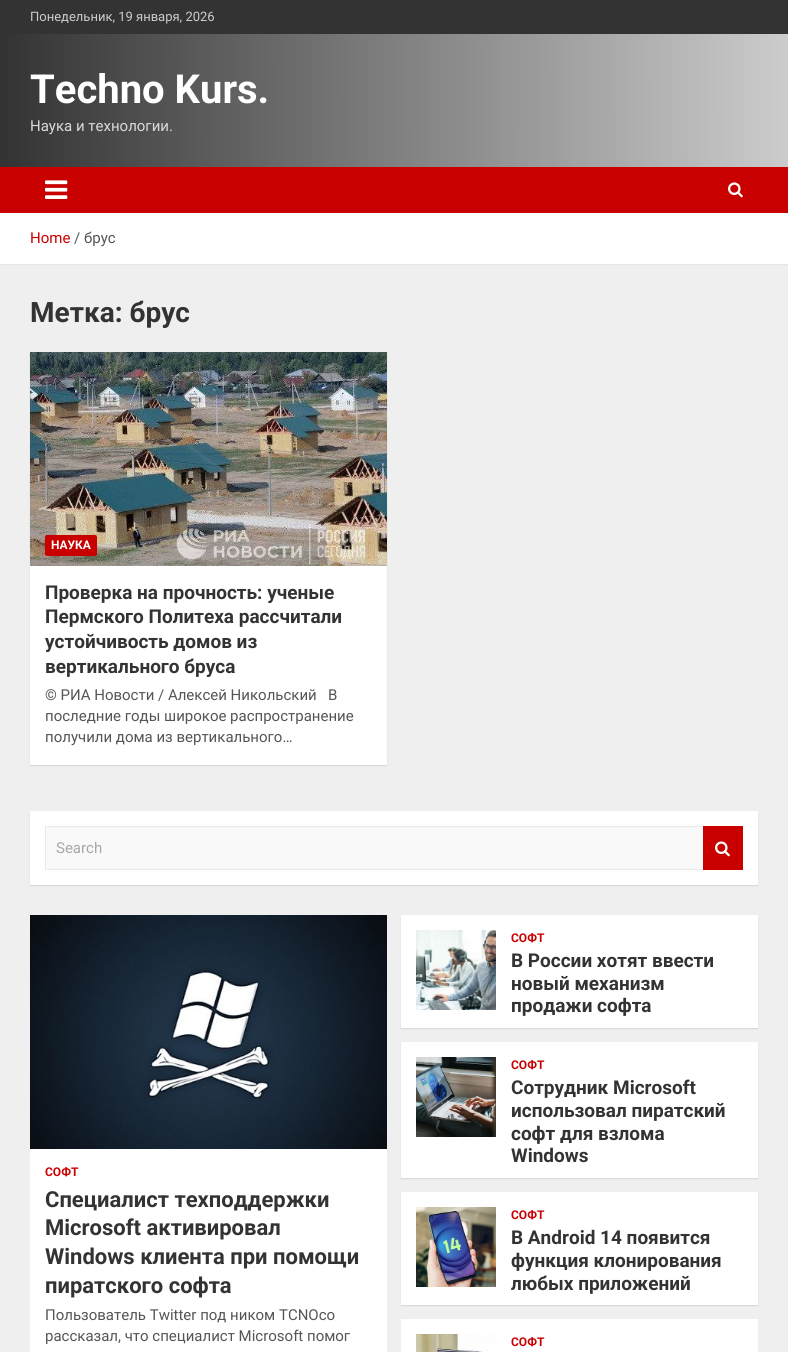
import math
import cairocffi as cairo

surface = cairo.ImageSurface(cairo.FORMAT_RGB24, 788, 1352)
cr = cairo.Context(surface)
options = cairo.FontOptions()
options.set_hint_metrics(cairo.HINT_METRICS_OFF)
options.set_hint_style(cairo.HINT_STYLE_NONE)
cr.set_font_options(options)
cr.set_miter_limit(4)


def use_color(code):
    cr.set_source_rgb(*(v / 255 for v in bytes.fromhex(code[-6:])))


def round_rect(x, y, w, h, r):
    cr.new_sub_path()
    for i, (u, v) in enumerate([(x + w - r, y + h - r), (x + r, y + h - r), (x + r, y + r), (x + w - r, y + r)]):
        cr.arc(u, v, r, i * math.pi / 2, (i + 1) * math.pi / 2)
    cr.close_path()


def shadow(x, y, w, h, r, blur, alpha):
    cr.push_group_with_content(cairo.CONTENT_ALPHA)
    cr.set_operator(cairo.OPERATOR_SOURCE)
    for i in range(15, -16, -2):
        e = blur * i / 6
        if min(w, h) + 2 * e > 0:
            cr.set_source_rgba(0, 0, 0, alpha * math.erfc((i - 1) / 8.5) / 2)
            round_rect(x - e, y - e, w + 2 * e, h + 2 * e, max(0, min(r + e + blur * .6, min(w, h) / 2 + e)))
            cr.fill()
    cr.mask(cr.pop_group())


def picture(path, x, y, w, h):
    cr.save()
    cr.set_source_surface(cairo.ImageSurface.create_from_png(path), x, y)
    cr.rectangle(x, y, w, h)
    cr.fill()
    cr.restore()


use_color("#efefef")
cr.paint()
use_color("#333333")
cr.rectangle(0, 0, 788, 34)
cr.fill()
cr.select_font_face("Roboto")
cr.set_font_size(13)
use_color("#cccccc")
cr.move_to(30, 21)
cr.show_text("Понедельник, 19 января, 2026")
gradient = cairo.LinearGradient(0, 101, 788, 100)
gradient.add_color_stop_rgba(0, 0.2, 0.2, 0.2, 1)
gradient.add_color_stop_rgba(1, 0.8, 0.8, 0.8, 1)
cr.set_source(gradient)
cr.rectangle(0, 34, 788, 133)
cr.fill()
cr.select_font_face("Roboto", cairo.FONT_SLANT_NORMAL, cairo.FONT_WEIGHT_BOLD)
cr.set_font_size(40)
use_color("#ffffff")
cr.move_to(30, 103)
cr.show_text("Techno Kurs.")
cr.select_font_face("Roboto")
cr.set_font_size(15)
use_color("#dadada")
cr.move_to(30, 131)
cr.show_text("Наука и технологии.")
use_color("#c80000")
cr.rectangle(0, 167, 788, 46)
cr.fill()
picture("img1.png", 45, 180, 23, 19)
picture("img2.png", 728, 182, 15, 16)
use_color("#ffffff")
cr.rectangle(0, 213, 788, 51)
cr.fill()
use_color("#e6e6e6")
cr.rectangle(0, 264, 788, 1)
cr.fill()
use_color("#c80000")
cr.move_to(30, 243)
cr.show_text("Home")
use_color("#555555")
cr.move_to(74, 243)
cr.show_text("/ брус")
cr.select_font_face("Roboto", cairo.FONT_SLANT_NORMAL, cairo.FONT_WEIGHT_BOLD)
cr.set_font_size(28)
use_color("#333333")
cr.move_to(30, 322)
cr.show_text("Метка: брус")
use_color("#000000")
shadow(30, 353, 357, 413, 0, 0.5, 0.1)
use_color("#ffffff")
cr.rectangle(30, 566, 357, 199)
cr.fill()
picture("img3.png", 30, 352, 357, 214)
use_color("#c80000")
round_rect(45, 535, 52, 21, 2)
cr.fill()
cr.set_font_size(12)
use_color("#ffffff")
cr.move_to(51, 549)
cr.show_text("НАУКА")
cr.set_font_size(19)
use_color("#333333")
cr.move_to(45, 599)
cr.show_text("Проверка на прочность: ученые")
cr.move_to(45, 623)
cr.show_text("Пермского Политеха рассчитали")
cr.move_to(45, 648)
cr.show_text("устойчивость домов из")
cr.move_to(45, 673)
cr.show_text("вертикального бруса")
cr.select_font_face("Roboto")
cr.set_font_size(15)
use_color("#555555")
cr.move_to(45, 700)
cr.show_text("© РИА Новости / Алексей Никольский   В")
cr.move_to(45, 721)
cr.show_text("последние годы широкое распространение")
cr.move_to(45, 742)
cr.show_text("получили дома из вертикального…")
use_color("#000000")
shadow(30, 812, 728, 74, 0, 0.5, 0.1)
use_color("#ffffff")
cr.rectangle(30, 811, 728, 74)
cr.fill()
use_color("#f9f9f9")
cr.rectangle(46, 827, 657, 42)
cr.fill()
use_color("#e8e8e8")
cr.new_path()
cr.move_to(45, 826)
cr.line_to(703, 826)
cr.line_to(703, 827)
cr.line_to(46, 827)
cr.close_path()
cr.fill()
cr.new_path()
cr.move_to(703, 870)
cr.line_to(45, 870)
cr.line_to(46, 869)
cr.line_to(703, 869)
cr.close_path()
cr.fill()
cr.set_source_rgba(0, 0, 0, 0.09)
cr.new_path()
cr.move_to(45, 870)
cr.line_to(45, 826)
cr.line_to(46, 827)
cr.line_to(46, 869)
cr.close_path()
cr.fill()
use_color("#a7a7a7")
cr.move_to(56, 853)
cr.show_text("Search")
use_color("#c80000")
cr.rectangle(703, 826, 40, 44)
cr.fill()
picture("img2.png", 715, 841, 15, 16)
use_color("#ffffff")
cr.rectangle(30, 1149, 357, 203)
cr.fill()
picture("img4.png", 30, 915, 357, 234)
cr.select_font_face("Roboto", cairo.FONT_SLANT_NORMAL, cairo.FONT_WEIGHT_BOLD)
cr.set_font_size(12)
use_color("#c80000")
cr.move_to(45, 1176)
cr.show_text("СОФТ")
cr.set_font_size(22)
use_color("#333333")
cr.move_to(45, 1207)
cr.show_text("Специалист техподдержки")
cr.move_to(45, 1235)
cr.show_text("Microsoft активировал")
cr.move_to(45, 1264)
cr.show_text("Windows клиента при помощи")
cr.move_to(45, 1293)
cr.show_text("пиратского софта")
cr.select_font_face("Roboto")
cr.set_font_size(15)
use_color("#555555")
cr.move_to(45, 1320)
cr.show_text("Пользователь Twitter под ником TCNOco")
cr.move_to(45, 1341)
cr.show_text("рассказал, что специалист Microsoft помог")
use_color("#000000")
shadow(401, 916, 357, 113, 0, 0.5, 0.1)
use_color("#ffffff")
cr.rectangle(401, 915, 357, 113)
cr.fill()
picture("img5.png", 416, 930, 80, 80)
cr.select_font_face("Roboto", cairo.FONT_SLANT_NORMAL, cairo.FONT_WEIGHT_BOLD)
cr.set_font_size(12)
use_color("#c80000")
cr.move_to(511, 942)
cr.show_text("СОФТ")
cr.set_font_size(19)
use_color("#333333")
cr.move_to(511, 967)
cr.show_text("В России хотят ввести")
cr.move_to(511, 990)
cr.show_text("новый механизм")
cr.move_to(511, 1012)
cr.show_text("продажи софта")
use_color("#000000")
shadow(401, 1043, 357, 136, 0, 0.5, 0.1)
use_color("#ffffff")
cr.rectangle(401, 1042, 357, 136)
cr.fill()
picture("img6.png", 416, 1057, 80, 80)
cr.set_font_size(12)
use_color("#c80000")
cr.move_to(511, 1069)
cr.show_text("СОФТ")
cr.set_font_size(19)
use_color("#333333")
cr.move_to(511, 1094)
cr.show_text("Сотрудник Microsoft")
cr.move_to(511, 1117)
cr.show_text("использовал пиратский")
cr.move_to(511, 1140)
cr.show_text("софт для взлома")
cr.move_to(511, 1162)
cr.show_text("Windows")
use_color("#000000")
shadow(401, 1193, 357, 113, 0, 0.5, 0.1)
use_color("#ffffff")
cr.rectangle(401, 1192, 357, 113)
cr.fill()
picture("img7.png", 416, 1207, 80, 80)
cr.set_font_size(12)
use_color("#c80000")
cr.move_to(511, 1219)
cr.show_text("СОФТ")
cr.set_font_size(19)
use_color("#333333")
cr.move_to(511, 1244)
cr.show_text("В Android 14 появится")
cr.move_to(511, 1267)
cr.show_text("функция клонирования")
cr.move_to(511, 1290)
cr.show_text("любых приложений")
use_color("#ffffff")
cr.rectangle(401, 1319, 357, 33)
cr.fill()
picture("img8.png", 416, 1334, 80, 18)
cr.set_font_size(12)
use_color("#c80000")
cr.move_to(511, 1346)
cr.show_text("СОФТ")
surface.write_to_png("result.png")
